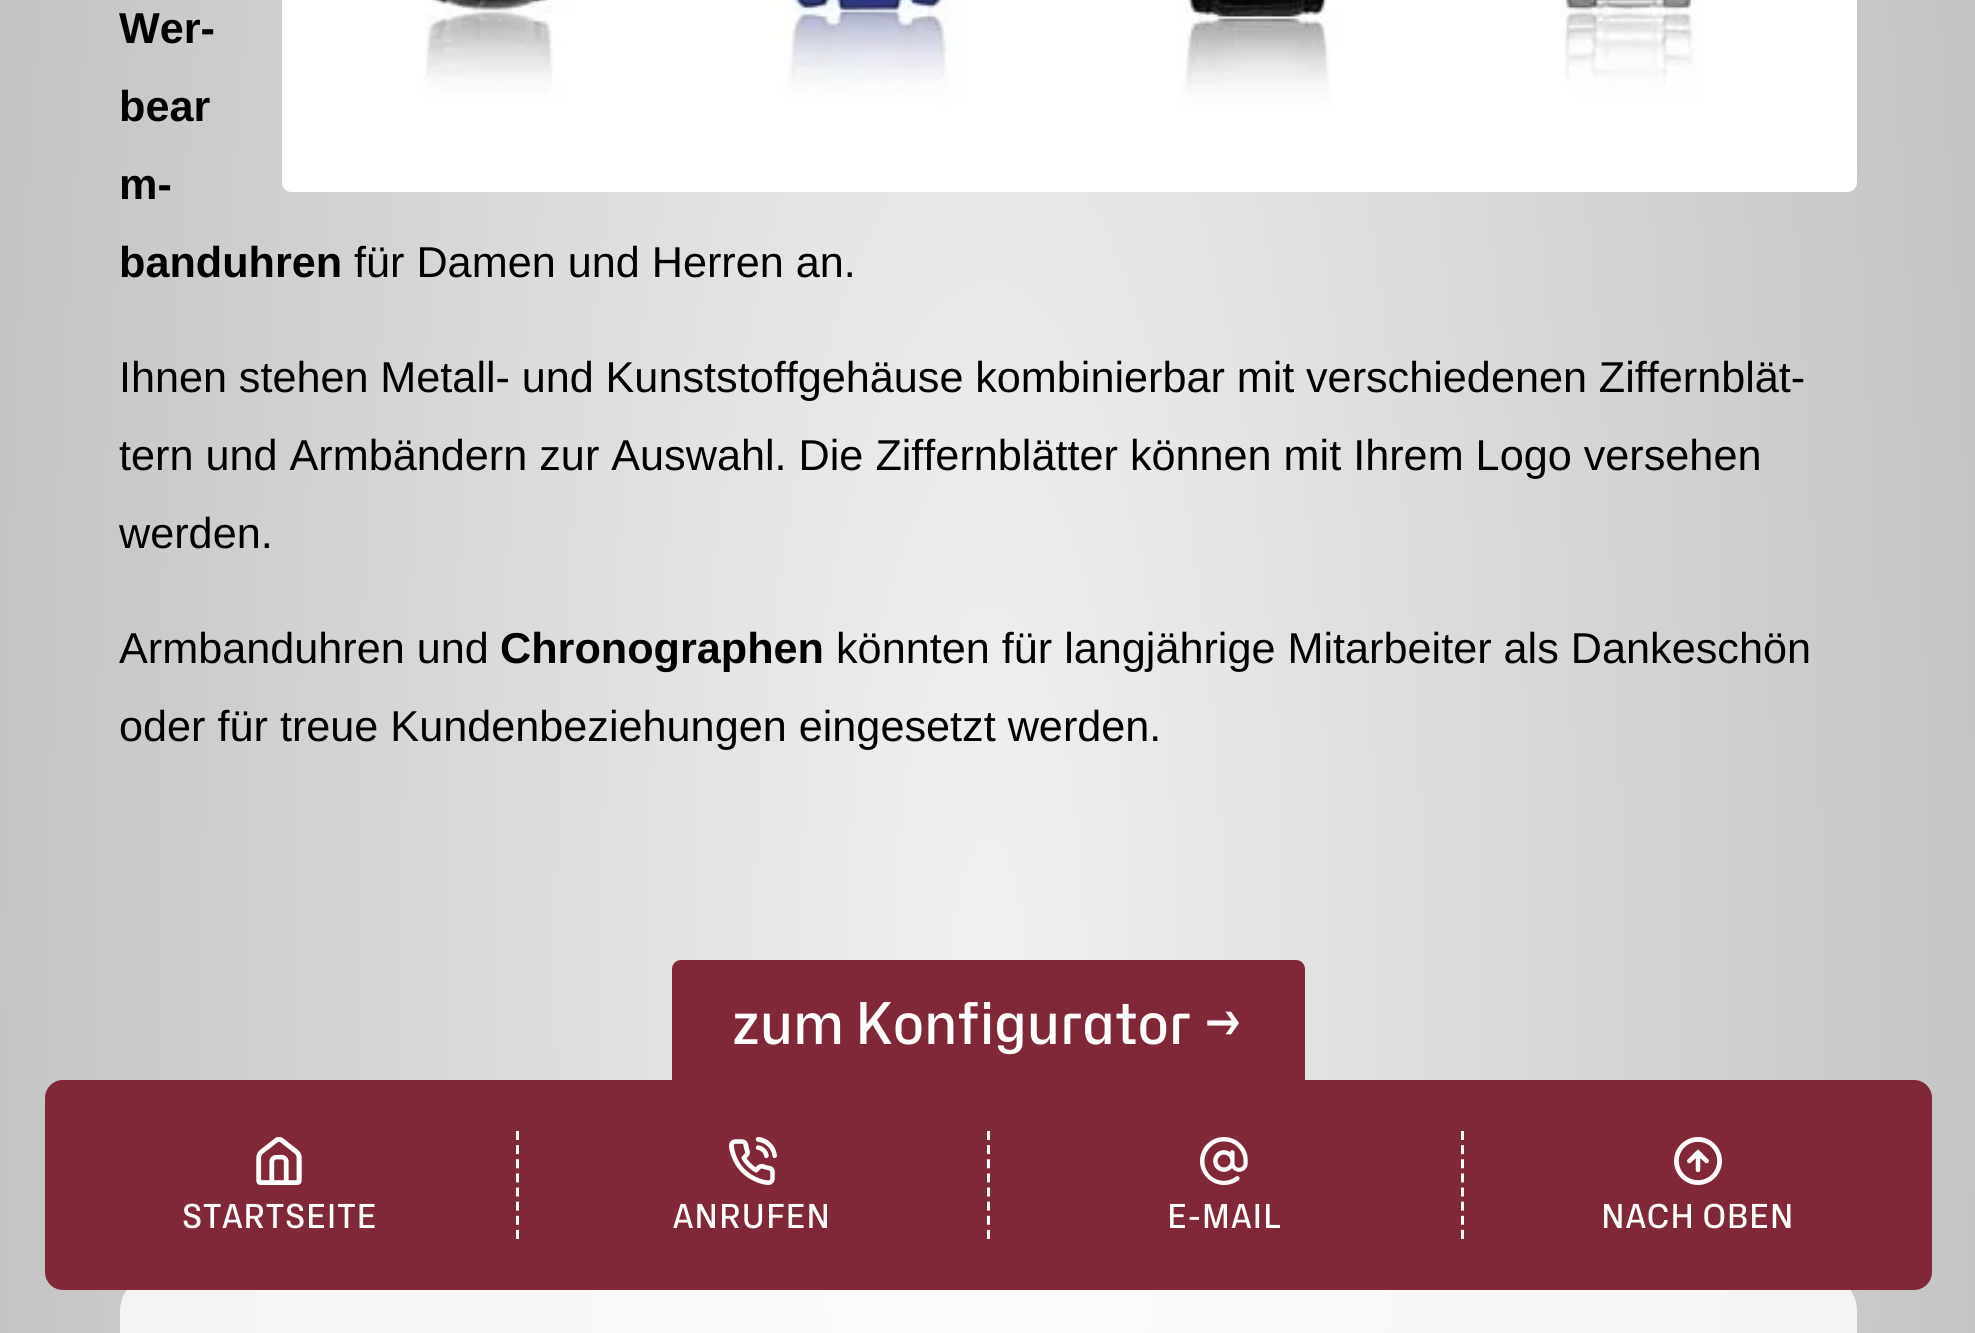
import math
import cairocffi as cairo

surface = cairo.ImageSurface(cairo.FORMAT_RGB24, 1975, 1333)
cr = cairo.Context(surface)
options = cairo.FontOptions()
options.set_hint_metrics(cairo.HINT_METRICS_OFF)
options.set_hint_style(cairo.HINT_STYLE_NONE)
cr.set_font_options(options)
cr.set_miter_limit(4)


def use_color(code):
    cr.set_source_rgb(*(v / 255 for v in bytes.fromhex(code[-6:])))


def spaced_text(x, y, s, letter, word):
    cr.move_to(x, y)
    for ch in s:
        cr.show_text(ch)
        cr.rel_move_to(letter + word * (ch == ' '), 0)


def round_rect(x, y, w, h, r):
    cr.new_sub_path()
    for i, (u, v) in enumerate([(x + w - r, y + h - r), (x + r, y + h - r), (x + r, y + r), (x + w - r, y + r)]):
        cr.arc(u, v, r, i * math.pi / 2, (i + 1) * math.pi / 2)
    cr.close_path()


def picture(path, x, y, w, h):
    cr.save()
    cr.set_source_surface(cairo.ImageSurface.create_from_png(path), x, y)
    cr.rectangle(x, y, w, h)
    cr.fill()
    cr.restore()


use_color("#ffffff")
cr.paint()
gradient = cairo.RadialGradient(0, 0, 0, 0, 0, 1)
gradient.set_matrix(cairo.Matrix(1 / 1398, 0, 0, 1 / 4977, -1 * 989 / 1398, -1 * 957 / 4977))
gradient.add_color_stop_rgba(0, 0.945, 0.945, 0.945, 1)
gradient.add_color_stop_rgba(1, 0.698, 0.698, 0.698, 1)
cr.set_source(gradient)
cr.rectangle(0, 0, 1975, 1333)
cr.fill()
picture("img1.png", 282, 0, 1575, 192)
cr.select_font_face("Liberation Sans", cairo.FONT_SLANT_NORMAL, cairo.FONT_WEIGHT_BOLD)
cr.set_font_size(43.2)
use_color("#000000")
cr.move_to(119, 43)
cr.show_text("Wer-")
cr.move_to(119, 121)
cr.show_text("bear")
cr.move_to(119, 199)
cr.show_text("m-")
cr.move_to(119, 277)
cr.show_text("banduhren")
cr.select_font_face("Liberation Sans")
cr.move_to(354, 277)
cr.show_text("für Damen und Herren an.")
spaced_text(119, 392, "Ihnen stehen Metall- und Kunststoffgehäuse kombinierbar mit verschiedenen Ziffernblät-", 0, -0.25)
cr.move_to(119, 470)
cr.show_text("tern und Armbändern zur Auswahl. Die Ziffernblätter können mit Ihrem Logo versehen")
cr.move_to(119, 548)
cr.show_text("werden.")
cr.move_to(119, 663)
cr.show_text("Armbanduhren und")
cr.select_font_face("Liberation Sans", cairo.FONT_SLANT_NORMAL, cairo.FONT_WEIGHT_BOLD)
cr.move_to(500, 663)
cr.show_text("Chronographen")
cr.select_font_face("Liberation Sans")
cr.move_to(836, 663)
cr.show_text("könnten für langjährige Mitarbeiter als Dankeschön")
cr.move_to(119, 741)
cr.show_text("oder für treue Kundenbeziehungen eingesetzt werden.")
use_color("#802838")
round_rect(672, 960, 633, 135, 9)
cr.fill()
cr.select_font_face("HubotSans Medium")
cr.set_font_size(57.5)
use_color("#ffffff")
spaced_text(732, 1044, "zum Konfigurator →", 0, -1)
cr.set_source_rgba(1, 1, 1, 0.8)
round_rect(120, 1275, 1737, 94, 36)
cr.fill()
use_color("#802838")
round_rect(45, 1080, 1887, 210, 18)
cr.fill()
picture("img2.png", 256, 1137, 46, 48)
cr.set_font_size(33)
use_color("#ffffff")
spaced_text(182, 1228, "STARTSEITE", 1, 0)
cr.new_path()
cr.move_to(517.5, 1131)
cr.line_to(517.5, 1239)
cr.set_line_width(3)
cr.set_dash([9, 5.13])
cr.stroke()
picture("img3.png", 729, 1137, 48, 48)
spaced_text(673, 1228, "ANRUFEN", 1, 0)
cr.new_path()
cr.move_to(988.5, 1131)
cr.line_to(988.5, 1239)
cr.stroke()
picture("img4.png", 1200, 1137, 48, 48)
spaced_text(1167, 1228, "E-MAIL", 1, 0)
cr.new_path()
cr.move_to(1462.5, 1131)
cr.line_to(1462.5, 1239)
cr.stroke()
picture("img5.png", 1674, 1137, 48, 48)
spaced_text(1601, 1228, "NACH OBEN", 1, 0)
surface.write_to_png("result.png")
